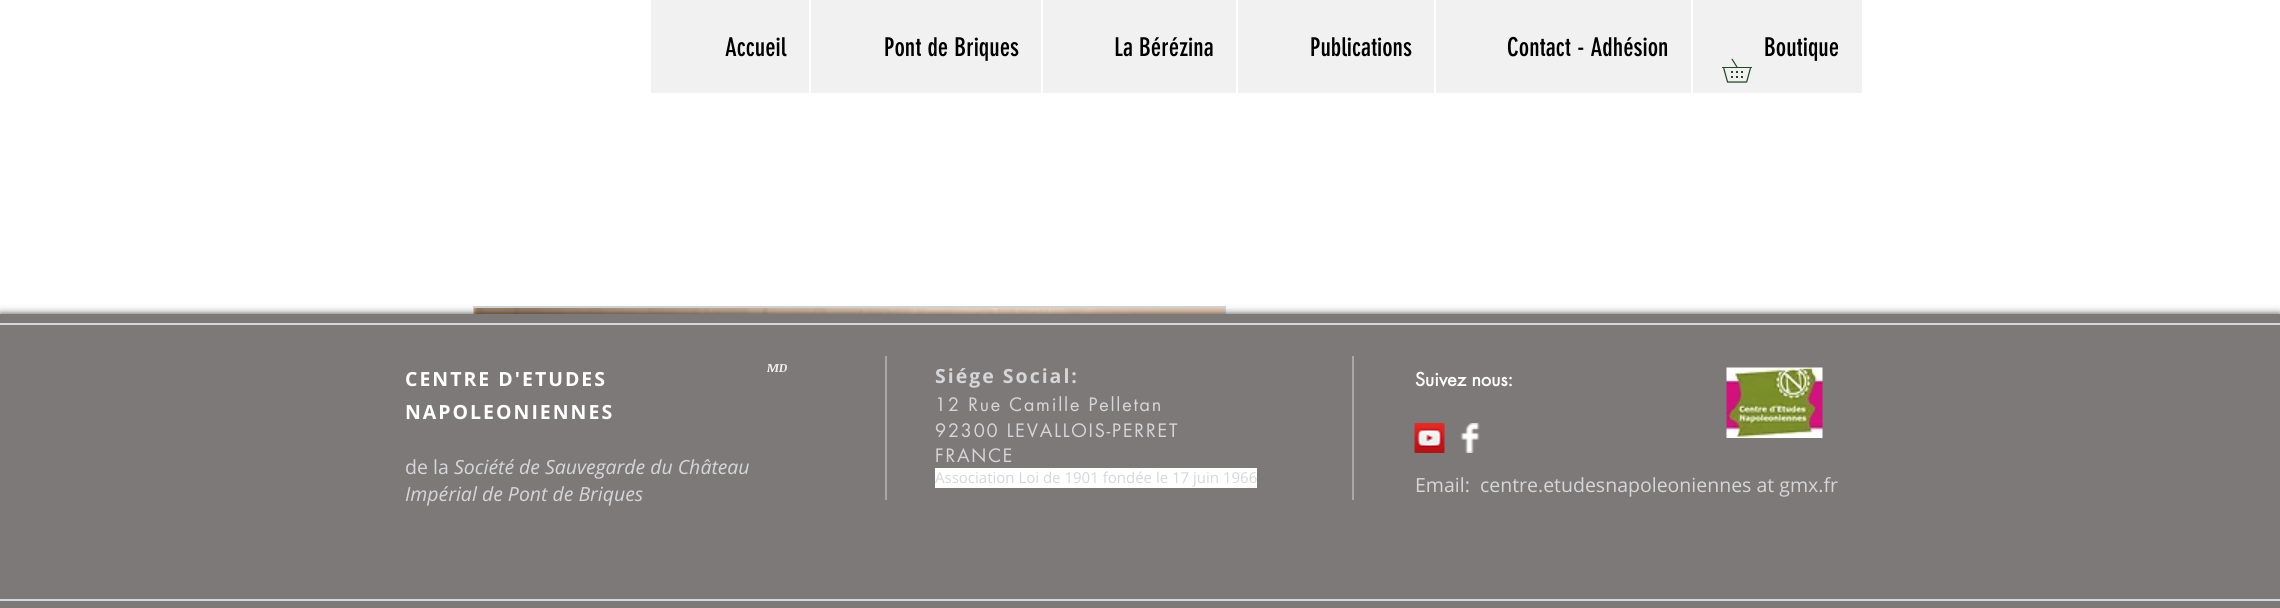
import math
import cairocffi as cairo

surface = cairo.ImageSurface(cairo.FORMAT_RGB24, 2280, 608)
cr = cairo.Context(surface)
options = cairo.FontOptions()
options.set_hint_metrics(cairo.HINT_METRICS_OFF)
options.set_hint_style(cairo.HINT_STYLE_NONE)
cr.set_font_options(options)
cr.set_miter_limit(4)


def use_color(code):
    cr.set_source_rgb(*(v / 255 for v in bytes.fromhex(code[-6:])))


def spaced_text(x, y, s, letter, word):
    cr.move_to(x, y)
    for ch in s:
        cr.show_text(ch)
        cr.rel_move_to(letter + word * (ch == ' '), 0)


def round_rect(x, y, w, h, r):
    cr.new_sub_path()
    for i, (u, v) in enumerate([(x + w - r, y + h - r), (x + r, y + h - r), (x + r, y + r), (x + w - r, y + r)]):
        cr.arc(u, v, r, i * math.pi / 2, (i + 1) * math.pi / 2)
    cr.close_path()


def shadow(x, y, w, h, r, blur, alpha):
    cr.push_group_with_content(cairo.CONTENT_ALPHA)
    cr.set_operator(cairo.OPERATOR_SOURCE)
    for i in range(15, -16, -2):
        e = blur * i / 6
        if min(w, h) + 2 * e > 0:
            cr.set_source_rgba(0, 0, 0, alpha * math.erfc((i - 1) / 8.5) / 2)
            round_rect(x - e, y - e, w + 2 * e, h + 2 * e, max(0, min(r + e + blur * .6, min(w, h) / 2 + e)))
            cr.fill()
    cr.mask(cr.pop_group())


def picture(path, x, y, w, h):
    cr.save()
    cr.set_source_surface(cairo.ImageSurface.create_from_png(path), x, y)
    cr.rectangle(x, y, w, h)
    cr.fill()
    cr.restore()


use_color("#ffffff")
cr.paint()
use_color("#f1f1f1")
cr.rectangle(651, 0, 1211, 93)
cr.fill()
cr.select_font_face("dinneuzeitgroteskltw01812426")
cr.set_font_size(25.5)
use_color("#000000")
cr.move_to(725, 56)
cr.show_text("Accueil")
use_color("#ffffff")
cr.rectangle(809, 0, 2, 93)
cr.fill()
use_color("#000000")
cr.move_to(884, 56)
cr.show_text("Pont de Briques")
use_color("#ffffff")
cr.rectangle(1041, 0, 2, 93)
cr.fill()
use_color("#000000")
cr.move_to(1114, 56)
cr.show_text("La Bérézina")
use_color("#ffffff")
cr.rectangle(1236, 0, 2, 93)
cr.fill()
use_color("#000000")
cr.move_to(1310, 56)
cr.show_text("Publications")
use_color("#ffffff")
cr.rectangle(1434, 0, 2, 93)
cr.fill()
use_color("#000000")
cr.move_to(1507, 56)
cr.show_text("Contact - Adhésion")
use_color("#ffffff")
cr.rectangle(1691, 0, 2, 93)
cr.fill()
use_color("#000000")
cr.move_to(1764, 56)
cr.show_text("Boutique")
picture("img1.png", 1722, 58, 30, 25)
cr.rectangle(474, 307, 751, 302)
use_color("#d5d6d9")
cr.stroke()
picture("img2.png", 474, 308, 750, 6)
use_color("#000000")
shadow(0, 314, 2280, 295, 0, 4, 0.7)
use_color("#7d7979")
cr.rectangle(0, 314, 2280, 294)
cr.fill()
use_color("#d5d6d9")
cr.rectangle(0, 323, 2280, 2)
cr.fill()
cr.rectangle(0, 599, 2280, 2)
cr.fill()
cr.select_font_face("Open Sans", cairo.FONT_SLANT_NORMAL, cairo.FONT_WEIGHT_BOLD)
cr.set_font_size(19.5)
use_color("#ffffff")
spaced_text(405, 386, "CENTRE D'ETUDES", 2, 0)
spaced_text(405, 419, "NAPOLEONIENNES", 2, 0)
cr.select_font_face("Open Sans")
use_color("#d5d6d9")
cr.move_to(405, 474)
cr.show_text("de la")
cr.select_font_face("Open Sans", cairo.FONT_SLANT_ITALIC)
cr.move_to(454, 474)
cr.show_text("Société de Sauvegarde du Château")
cr.move_to(405, 501)
cr.show_text("Impérial de Pont de Briques")
cr.select_font_face("Noticia Text", cairo.FONT_SLANT_ITALIC, cairo.FONT_WEIGHT_BOLD)
cr.set_font_size(12)
use_color("#f1f1f1")
cr.move_to(767, 372)
cr.show_text("MD")
use_color("#a9a8a9")
cr.rectangle(885, 356, 2, 144)
cr.fill()
cr.select_font_face("Open Sans", cairo.FONT_SLANT_NORMAL, cairo.FONT_WEIGHT_BOLD)
cr.set_font_size(19.5)
use_color("#d5d6d9")
spaced_text(935, 383, "Siége Social:", 2, 0)
cr.select_font_face("futura")
cr.set_font_size(18)
spaced_text(935, 411, "12 Rue Camille Pelletan", 1.8, 0)
spaced_text(935, 437, "92300 LEVALLOIS-PERRET", 1.8, 0)
spaced_text(935, 462, "FRANCE", 1.8, 0)
use_color("#ffffff")
cr.rectangle(935, 468, 322, 20)
cr.fill()
cr.select_font_face("Open Sans")
cr.set_font_size(15)
use_color("#d5d6d9")
cr.move_to(935, 483)
cr.show_text("Association Loi de 1901 fondée le 17 juin 1966")
use_color("#a9a8a9")
cr.rectangle(1352, 356, 2, 144)
cr.fill()
picture("img3.png", 1726, 367, 97, 71)
cr.select_font_face("futura", cairo.FONT_SLANT_NORMAL, cairo.FONT_WEIGHT_BOLD)
cr.set_font_size(18)
use_color("#ffffff")
cr.move_to(1415, 386)
cr.show_text("Suivez nous:")
cr.select_font_face("Open Sans")
cr.set_font_size(19.5)
use_color("#d5d6d9")
cr.move_to(1415, 492)
cr.show_text("Email:  centre.etudesnapoleoniennes at gmx.fr")
picture("img4.png", 1414, 423, 31, 30)
picture("img5.png", 1460, 423, 20, 30)
surface.write_to_png("result.png")
